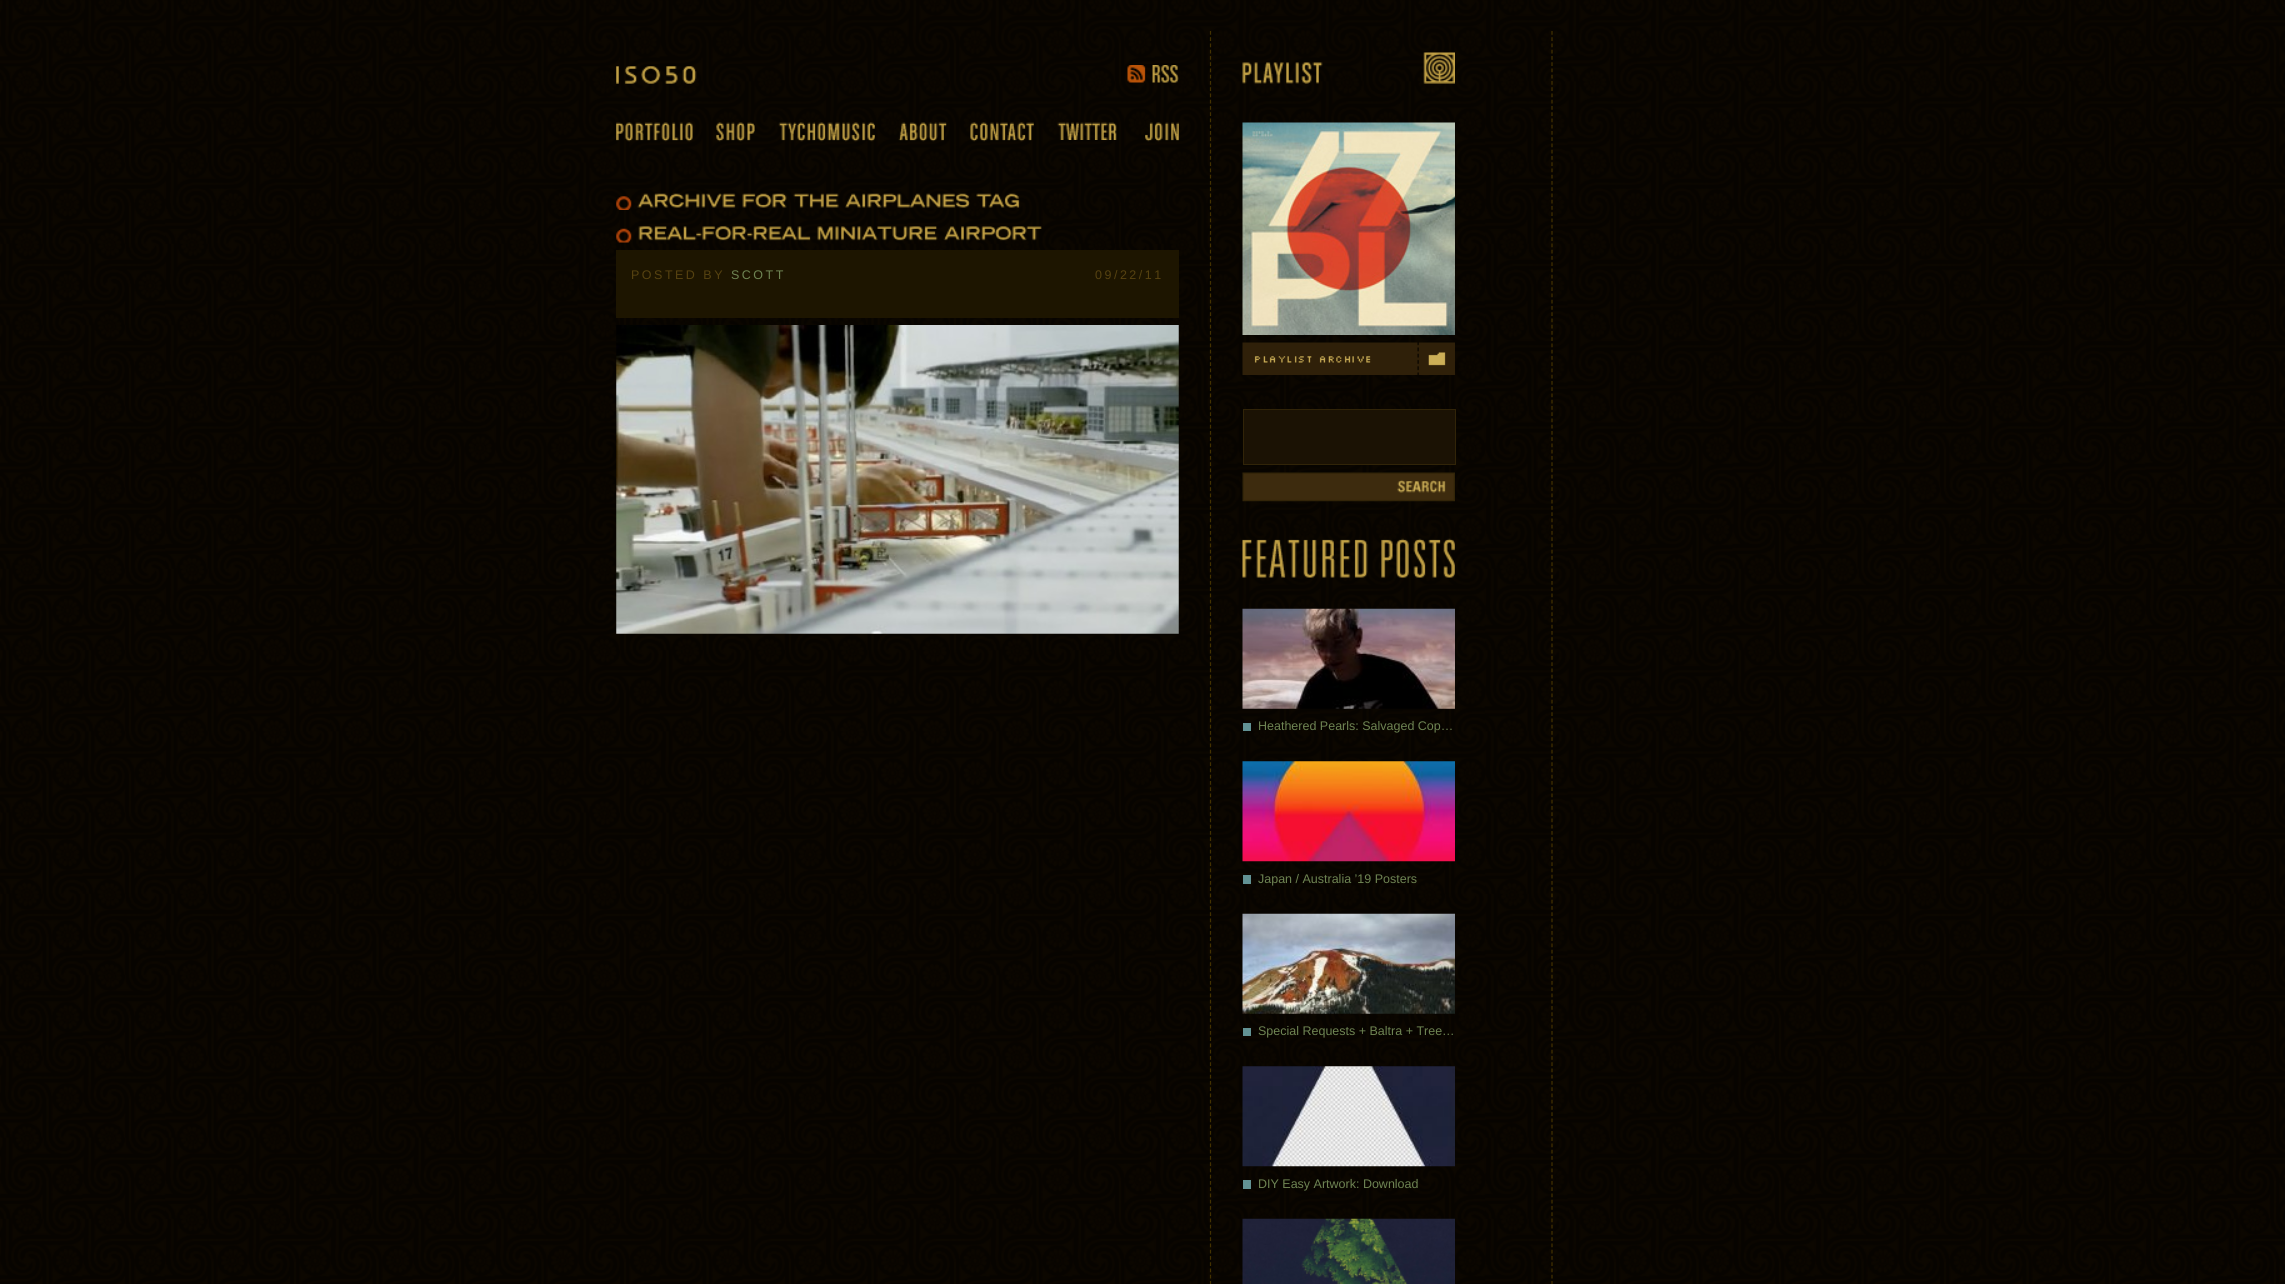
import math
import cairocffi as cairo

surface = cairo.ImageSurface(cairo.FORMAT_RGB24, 2285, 1284)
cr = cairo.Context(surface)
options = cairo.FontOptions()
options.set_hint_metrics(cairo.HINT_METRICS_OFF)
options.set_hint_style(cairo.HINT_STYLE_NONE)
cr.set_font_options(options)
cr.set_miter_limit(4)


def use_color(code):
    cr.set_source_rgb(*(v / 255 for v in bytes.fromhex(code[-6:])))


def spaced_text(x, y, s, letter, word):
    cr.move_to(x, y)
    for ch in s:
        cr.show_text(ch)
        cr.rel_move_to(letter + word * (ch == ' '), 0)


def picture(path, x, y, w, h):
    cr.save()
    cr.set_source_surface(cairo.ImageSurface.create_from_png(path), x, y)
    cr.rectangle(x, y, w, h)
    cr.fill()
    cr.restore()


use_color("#ffffff")
cr.paint()
picture("img1.png", 0, 0, 2285, 1284)
picture("img2.png", 616, 66, 81, 18)
picture("img3.png", 1127, 65, 52, 18)
picture("img4.png", 616, 122, 77, 20)
picture("img5.png", 716, 122, 39, 20)
picture("img6.png", 778, 122, 97, 20)
picture("img7.png", 898, 122, 49, 20)
picture("img8.png", 970, 122, 64, 20)
picture("img9.png", 1057, 122, 60, 18)
picture("img10.png", 1145, 122, 34, 20)
picture("img11.png", 616, 196, 16, 14)
picture("img12.png", 637, 193, 99, 15)
picture("img13.png", 742, 193, 45, 15)
picture("img14.png", 793, 193, 46, 15)
picture("img15.png", 845, 193, 125, 15)
picture("img16.png", 976, 193, 44, 15)
picture("img17.png", 616, 228, 16, 15)
picture("img18.png", 638, 226, 173, 15)
picture("img19.png", 817, 226, 121, 15)
picture("img20.png", 943, 226, 99, 15)
use_color("#1d1500")
cr.rectangle(616, 250, 563, 68)
cr.fill()
cr.select_font_face("Liberation Sans")
cr.set_font_size(12.5)
use_color("#564210")
spaced_text(631, 279, "POSTED BY", 2.5, 0)
use_color("#6e8453")
spaced_text(731, 279, "SCOTT", 2.5, 0)
use_color("#564210")
spaced_text(1095, 279, "09/22/11", 2.5, 0)
picture("img21.png", 616, 325, 563, 309)
cr.new_path()
cr.move_to(1552, 31)
cr.line_to(1552, 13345)
use_color("#443200")
cr.set_line_width(1.2)
cr.set_dash([3.75, 2.5])
cr.stroke()
cr.new_path()
cr.move_to(1210.5, 31)
cr.line_to(1210.5, 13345)
cr.stroke()
picture("img22.png", 1242, 52, 213, 32)
picture("img23.png", 1242, 122, 213, 213)
picture("img24.png", 1242, 342, 213, 33)
use_color("#1b1204")
cr.rectangle(1243.5, 409.5, 212, 55)
cr.fill_preserve()
use_color("#312408")
cr.set_line_width(1)
cr.set_dash([])
cr.stroke()
picture("img25.png", 1242, 472, 213, 30)
picture("img26.png", 1242, 538, 213, 40)
picture("img27.png", 1242, 608, 213, 101)
use_color("#629294")
cr.rectangle(1243, 723, 8, 8)
cr.fill()
use_color("#6e8453")
cr.move_to(1258, 730)
cr.show_text("Heathered Pearls: Salvaged Cop…")
picture("img28.png", 1242, 761, 213, 101)
use_color("#629294")
cr.rectangle(1243, 875, 8, 9)
cr.fill()
use_color("#6e8453")
cr.move_to(1258, 883)
cr.show_text("Japan / Australia ’19 Posters")
picture("img29.png", 1242, 913, 213, 101)
use_color("#629294")
cr.rectangle(1243, 1028, 8, 8)
cr.fill()
use_color("#6e8453")
cr.move_to(1258, 1035)
cr.show_text("Special Requests + Baltra + Tree…")
picture("img30.png", 1242, 1066, 213, 101)
use_color("#629294")
cr.rectangle(1243, 1180, 8, 9)
cr.fill()
use_color("#6e8453")
cr.move_to(1258, 1188)
cr.show_text("DIY Easy Artwork: Download")
picture("img31.png", 1242, 1218, 213, 66)
surface.write_to_png("result.png")
